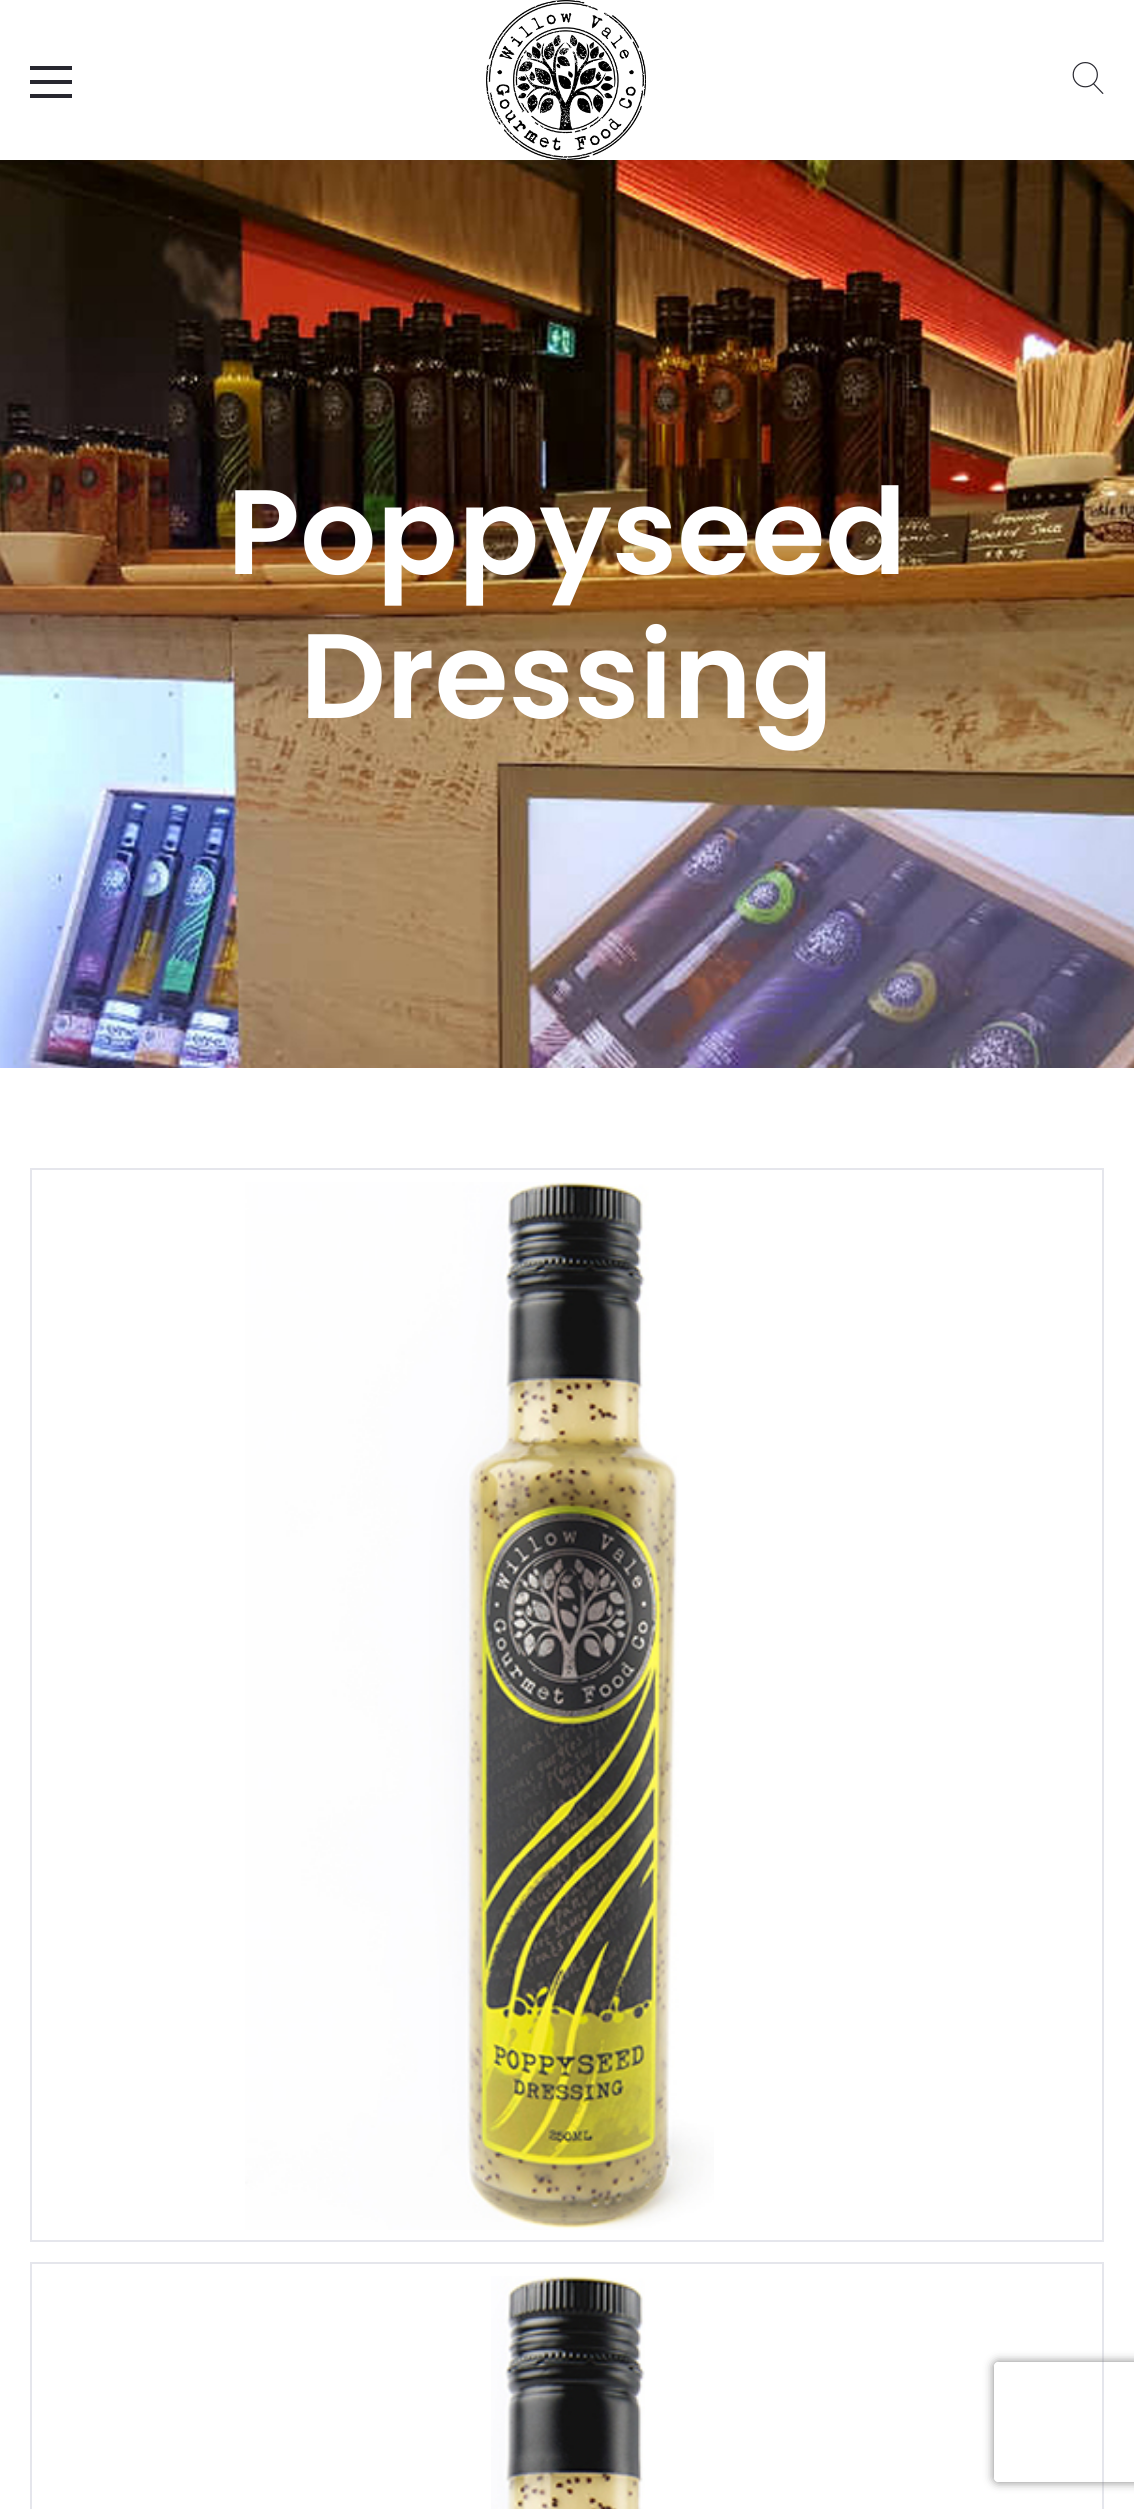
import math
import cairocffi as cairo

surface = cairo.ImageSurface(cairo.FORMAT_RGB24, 1134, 2509)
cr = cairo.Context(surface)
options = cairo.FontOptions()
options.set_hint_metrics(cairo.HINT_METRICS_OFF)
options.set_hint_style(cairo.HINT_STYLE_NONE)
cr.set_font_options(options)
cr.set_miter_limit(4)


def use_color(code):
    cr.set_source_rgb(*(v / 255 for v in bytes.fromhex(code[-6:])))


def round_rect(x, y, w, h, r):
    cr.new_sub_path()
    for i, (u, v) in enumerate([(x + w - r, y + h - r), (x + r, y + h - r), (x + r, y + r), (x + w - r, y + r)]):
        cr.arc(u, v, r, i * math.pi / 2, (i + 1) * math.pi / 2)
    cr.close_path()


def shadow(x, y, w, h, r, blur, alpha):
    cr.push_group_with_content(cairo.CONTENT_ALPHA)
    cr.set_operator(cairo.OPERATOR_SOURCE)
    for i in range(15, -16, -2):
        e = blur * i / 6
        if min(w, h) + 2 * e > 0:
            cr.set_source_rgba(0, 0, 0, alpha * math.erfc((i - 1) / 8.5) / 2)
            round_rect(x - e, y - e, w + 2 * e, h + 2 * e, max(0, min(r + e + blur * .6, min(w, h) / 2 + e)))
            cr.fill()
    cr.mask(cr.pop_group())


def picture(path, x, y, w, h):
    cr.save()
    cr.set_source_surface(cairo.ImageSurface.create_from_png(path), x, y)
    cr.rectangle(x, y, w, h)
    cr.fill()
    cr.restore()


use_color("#ffffff")
cr.paint()
use_color("#27272f")
cr.rectangle(30, 80, 42, 4)
cr.fill()
cr.rectangle(30, 66, 42, 4)
cr.fill()
cr.rectangle(30, 94, 42, 4)
cr.fill()
picture("img1.png", 486, 0, 160, 160)
picture("img2.png", 1072, 62, 32, 32)
picture("img3.png", 0, 160, 1134, 908)
cr.select_font_face("Poppins SemiBold")
cr.set_font_size(120)
use_color("#ffffff")
cr.move_to(227, 574)
cr.show_text("Poppyseed")
cr.move_to(300, 718)
cr.show_text("Dressing")
cr.rectangle(31, 1169, 1072, 1072)
use_color("#e5e6ec")
cr.stroke()
picture("img4.png", 245, 1182, 469, 1048)
cr.rectangle(31, 2263, 1072, 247)
cr.stroke()
picture("img5.png", 491, 2276, 154, 233)
cr.save()
cr.set_fill_rule(cairo.FILL_RULE_EVEN_ODD)
cr.new_path()
cr.move_to(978, 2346)
cr.line_to(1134, 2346)
cr.line_to(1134, 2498)
cr.line_to(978, 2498)
cr.close_path()
cr.move_to(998, 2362)
cr.line_to(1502, 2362)
cr.curve_to(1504, 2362, 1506, 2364, 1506, 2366)
cr.line_to(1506, 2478)
cr.curve_to(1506, 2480, 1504, 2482, 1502, 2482)
cr.line_to(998, 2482)
cr.curve_to(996, 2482, 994, 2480, 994, 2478)
cr.line_to(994, 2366)
cr.curve_to(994, 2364, 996, 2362, 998, 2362)
cr.close_path()
cr.clip()
use_color("#808080")
shadow(994, 2362, 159, 120, 4, 5, 1)
cr.restore()
surface.write_to_png("result.png")
